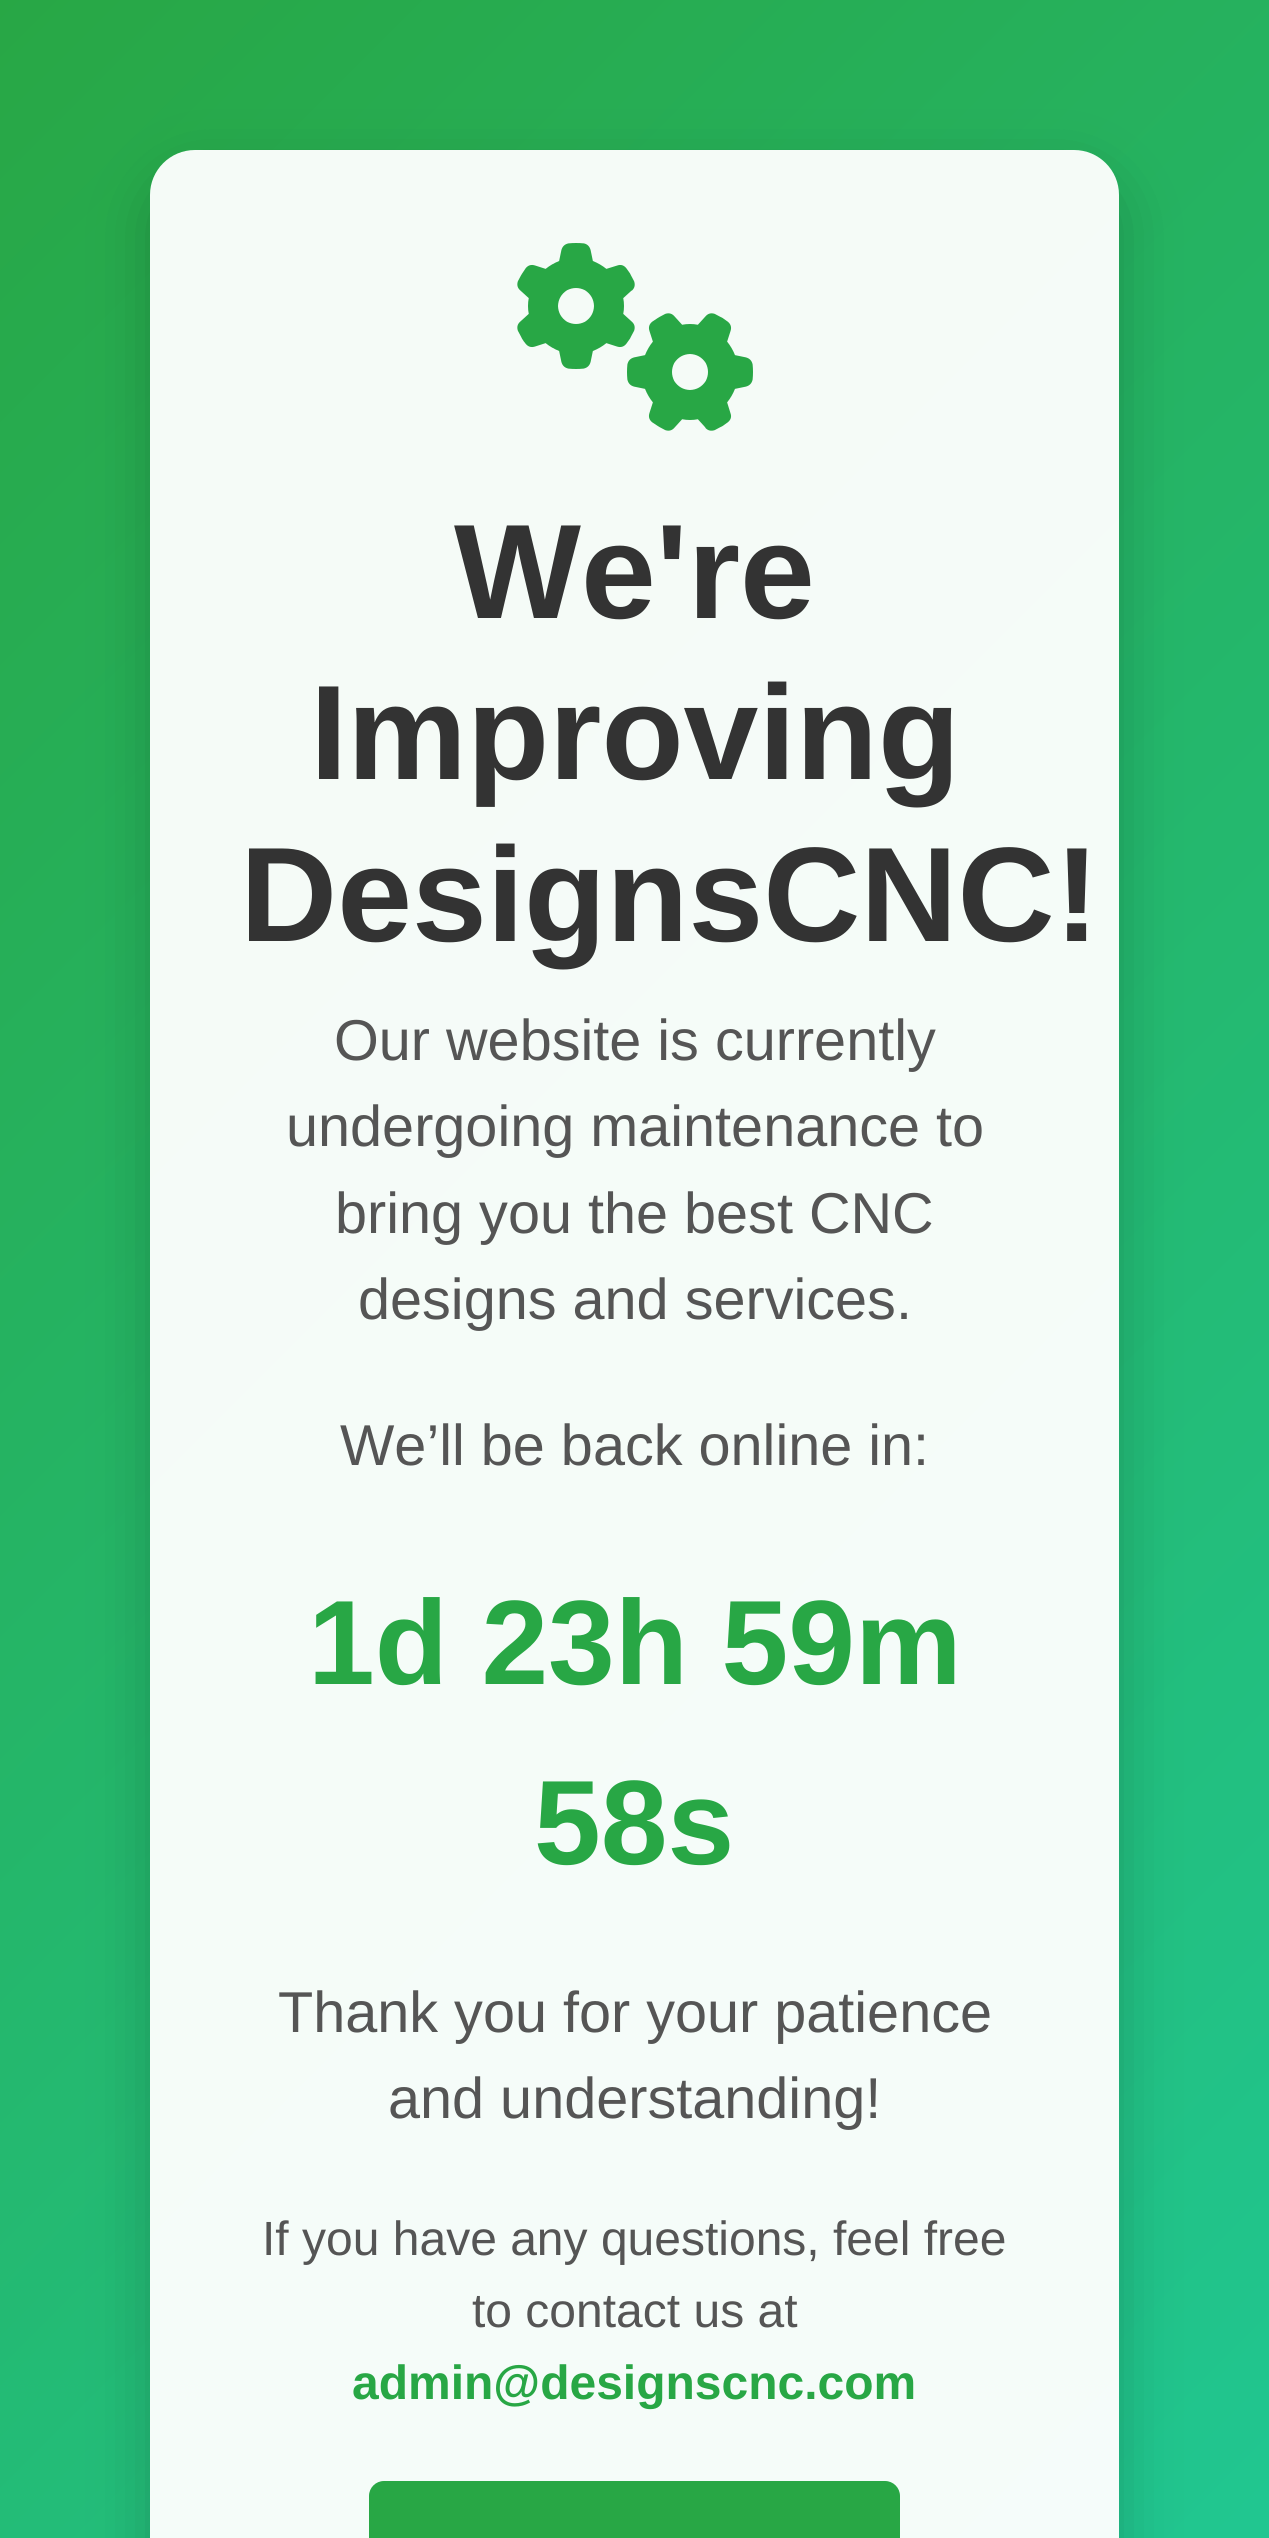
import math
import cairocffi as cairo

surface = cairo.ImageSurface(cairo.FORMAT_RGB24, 1269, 2538)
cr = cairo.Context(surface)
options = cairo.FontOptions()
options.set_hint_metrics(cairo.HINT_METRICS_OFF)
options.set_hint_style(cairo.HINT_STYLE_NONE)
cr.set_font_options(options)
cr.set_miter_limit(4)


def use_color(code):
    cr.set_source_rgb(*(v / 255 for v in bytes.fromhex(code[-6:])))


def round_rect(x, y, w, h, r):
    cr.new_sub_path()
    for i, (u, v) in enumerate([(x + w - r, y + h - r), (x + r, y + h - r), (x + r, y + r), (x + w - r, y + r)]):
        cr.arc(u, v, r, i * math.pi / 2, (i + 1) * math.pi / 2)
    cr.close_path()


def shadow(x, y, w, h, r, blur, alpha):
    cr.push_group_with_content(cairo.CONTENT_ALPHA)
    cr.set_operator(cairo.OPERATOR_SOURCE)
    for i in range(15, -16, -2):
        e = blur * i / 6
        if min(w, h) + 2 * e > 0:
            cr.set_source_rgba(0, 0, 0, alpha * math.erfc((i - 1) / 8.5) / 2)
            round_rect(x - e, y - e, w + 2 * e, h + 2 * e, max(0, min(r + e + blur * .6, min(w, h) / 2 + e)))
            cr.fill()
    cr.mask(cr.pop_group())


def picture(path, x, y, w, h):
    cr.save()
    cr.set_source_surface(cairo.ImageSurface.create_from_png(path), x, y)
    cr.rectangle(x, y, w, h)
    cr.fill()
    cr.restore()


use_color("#ffffff")
cr.paint()
gradient = cairo.LinearGradient(-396, 396, 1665, 2457)
gradient.add_color_stop_rgba(0, 0.157, 0.655, 0.271, 1)
gradient.add_color_stop_rgba(1, 0.125, 0.788, 0.592, 1)
cr.set_source(gradient)
cr.rectangle(0, 0, 1269, 2538)
cr.fill()
cr.save()
cr.set_fill_rule(cairo.FILL_RULE_EVEN_ODD)
cr.new_path()
cr.move_to(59, 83)
cr.line_to(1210, 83)
cr.line_to(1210, 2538)
cr.line_to(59, 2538)
cr.close_path()
cr.move_to(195, 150)
cr.line_to(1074, 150)
cr.curve_to(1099, 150, 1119, 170, 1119, 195)
cr.line_to(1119, 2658)
cr.curve_to(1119, 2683, 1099, 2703, 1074, 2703)
cr.line_to(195, 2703)
cr.curve_to(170, 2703, 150, 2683, 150, 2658)
cr.line_to(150, 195)
cr.curve_to(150, 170, 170, 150, 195, 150)
cr.close_path()
cr.clip()
use_color("#000000")
shadow(150, 174, 969, 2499, 45, 30, 0.2)
cr.restore()
cr.set_source_rgba(1, 1, 1, 0.95)
round_rect(150, 150, 969, 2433, 45)
cr.fill()
picture("img1.png", 517, 243, 236, 188)
cr.select_font_face("Liberation Sans", cairo.FONT_SLANT_NORMAL, cairo.FONT_WEIGHT_BOLD)
cr.set_font_size(134.5)
use_color("#333333")
cr.move_to(454, 618)
cr.show_text("We're")
cr.move_to(310, 779)
cr.show_text("Improving")
cr.move_to(240, 941)
cr.show_text("DesignsCNC!")
cr.select_font_face("Liberation Sans")
cr.set_font_size(57.6)
use_color("#555555")
cr.move_to(334, 1060)
cr.show_text("Our website is currently")
cr.move_to(286, 1146)
cr.show_text("undergoing maintenance to")
cr.move_to(335, 1233)
cr.show_text("bring you the best CNC")
cr.move_to(358, 1319)
cr.show_text("designs and services.")
cr.move_to(340, 1465)
cr.show_text("We’ll be back online in:")
cr.select_font_face("Liberation Sans", cairo.FONT_SLANT_NORMAL, cairo.FONT_WEIGHT_BOLD)
cr.set_font_size(120)
use_color("#28a745")
cr.move_to(308, 1684)
cr.show_text("1d 23h 59m")
cr.move_to(534, 1864)
cr.show_text("58s")
cr.select_font_face("Liberation Sans")
cr.set_font_size(57.6)
use_color("#555555")
cr.move_to(278, 2032)
cr.show_text("Thank you for your patience")
cr.move_to(388, 2118)
cr.show_text("and understanding!")
cr.set_font_size(48)
cr.move_to(262, 2255)
cr.show_text("If you have any questions, feel free")
cr.move_to(472, 2327)
cr.show_text("to contact us at")
cr.select_font_face("Liberation Sans", cairo.FONT_SLANT_NORMAL, cairo.FONT_WEIGHT_BOLD)
use_color("#28a745")
cr.move_to(352, 2399)
cr.show_text("admin@designscnc.com")
round_rect(369, 2481, 531, 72, 15)
cr.fill()
surface.write_to_png("result.png")
